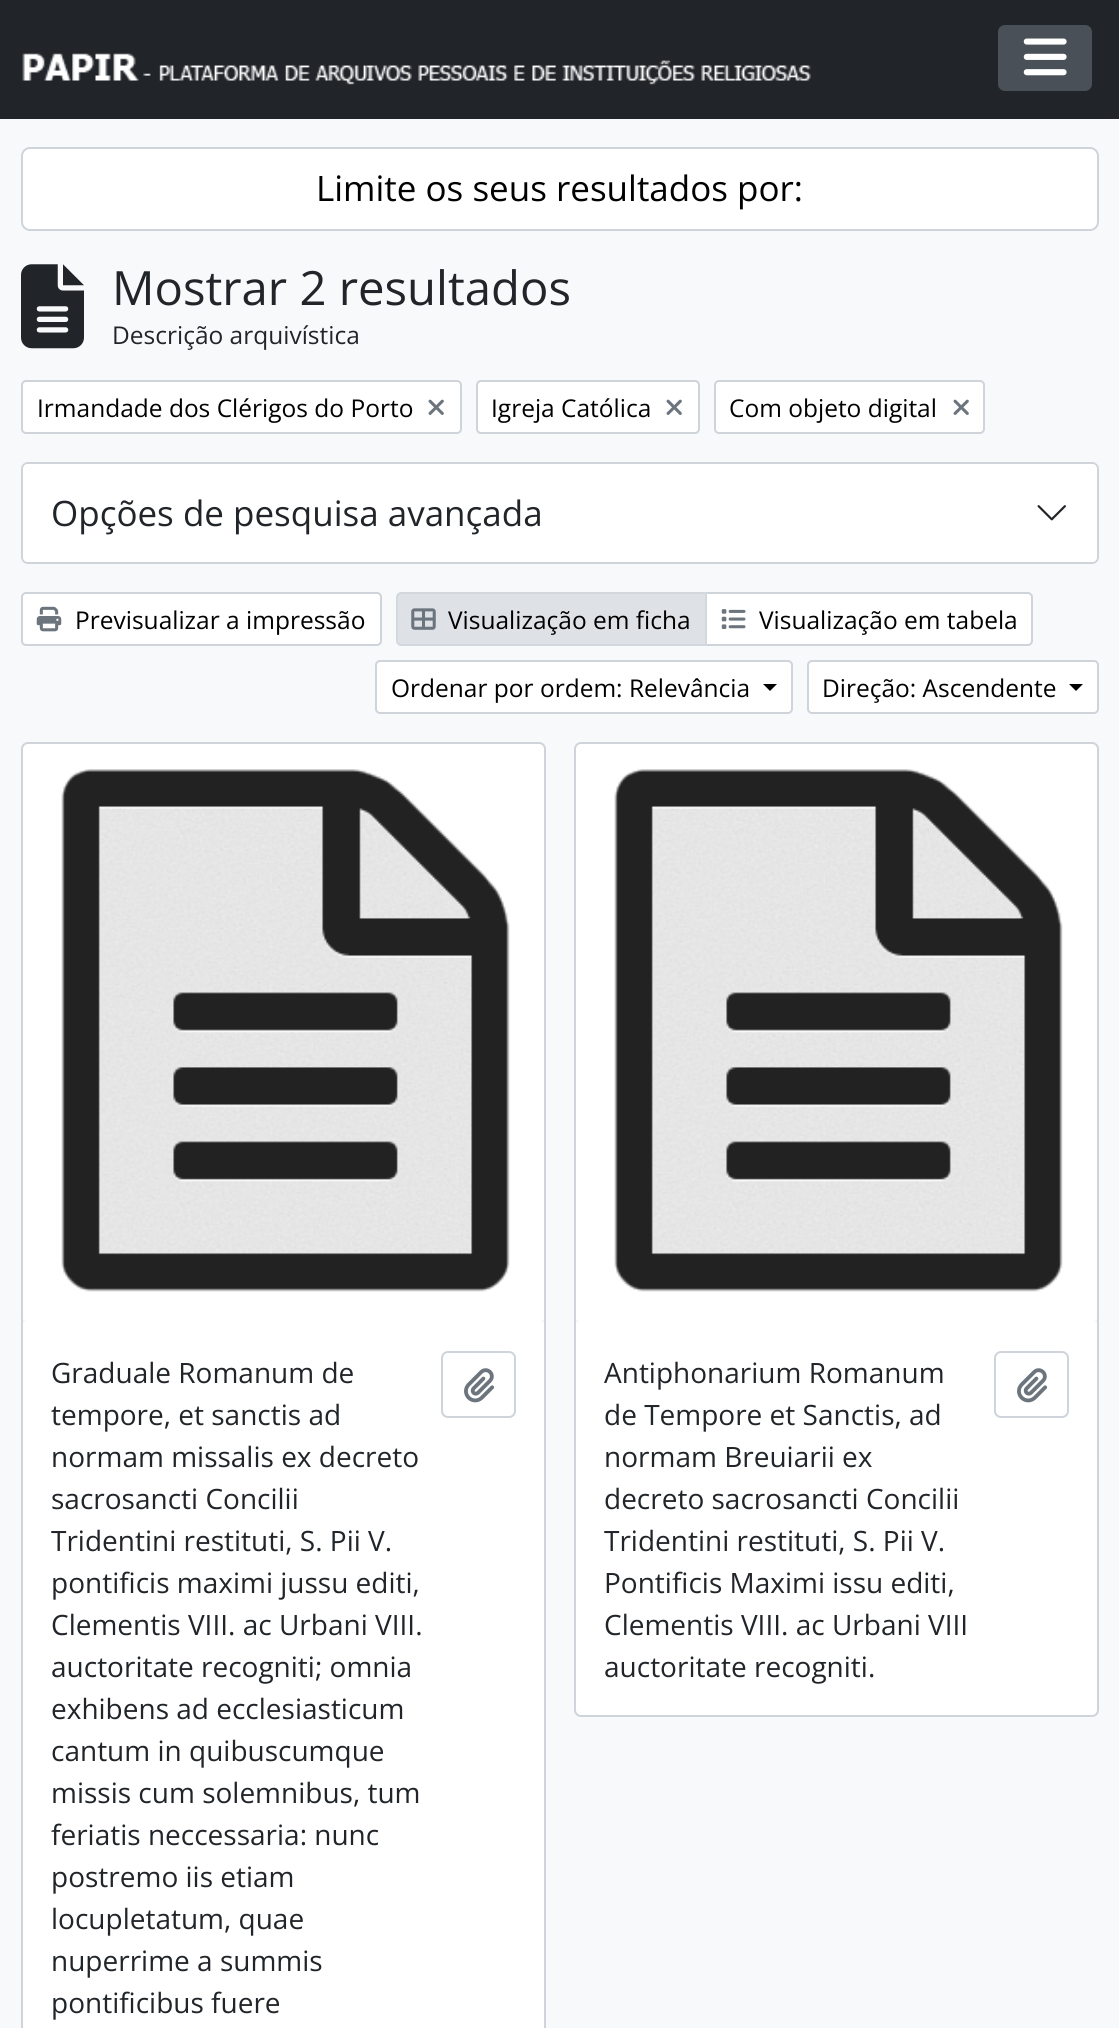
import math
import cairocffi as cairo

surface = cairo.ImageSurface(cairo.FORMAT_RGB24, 1119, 2028)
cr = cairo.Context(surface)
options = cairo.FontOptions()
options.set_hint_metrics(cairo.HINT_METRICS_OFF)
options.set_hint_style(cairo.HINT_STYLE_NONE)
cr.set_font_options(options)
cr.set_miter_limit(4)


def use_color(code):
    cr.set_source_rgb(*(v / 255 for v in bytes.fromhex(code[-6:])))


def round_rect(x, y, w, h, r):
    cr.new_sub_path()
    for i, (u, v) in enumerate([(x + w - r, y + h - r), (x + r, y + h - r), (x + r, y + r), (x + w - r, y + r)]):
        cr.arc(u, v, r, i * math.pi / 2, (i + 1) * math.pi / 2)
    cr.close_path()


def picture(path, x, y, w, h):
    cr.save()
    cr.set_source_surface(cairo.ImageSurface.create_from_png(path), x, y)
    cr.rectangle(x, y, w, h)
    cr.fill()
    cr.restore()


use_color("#f8f9fa")
cr.paint()
use_color("#212529")
cr.rectangle(0, 0, 1119, 119)
cr.fill()
picture("img1.png", 22, 53, 789, 32)
use_color("#495057")
round_rect(999, 26, 92, 64, 6)
cr.fill_preserve()
cr.stroke()
picture("img2.png", 1023, 38, 44, 38)
use_color("#ffffff")
round_rect(22, 148, 1076, 82, 8)
cr.fill_preserve()
use_color("#ced4da")
cr.stroke()
cr.select_font_face("Open Sans")
cr.set_font_size(35)
use_color("#000000")
cr.move_to(316, 201)
cr.show_text("Limite os seus resultados por:")
picture("img3.png", 21, 264, 63, 85)
cr.set_font_size(47.25)
use_color("#212529")
cr.move_to(112, 305)
cr.show_text("Mostrar 2 resultados")
cr.set_font_size(24.5)
cr.move_to(112, 344)
cr.show_text("Descrição arquivística")
use_color("#ffffff")
round_rect(22, 381, 439, 52, 4)
cr.fill_preserve()
use_color("#ced4da")
cr.stroke()
use_color("#000000")
cr.move_to(37, 417)
cr.show_text("Irmandade dos Clérigos do Porto")
picture("img4.png", 428, 399, 16, 16)
use_color("#ffffff")
round_rect(477, 381, 222, 52, 4)
cr.fill_preserve()
use_color("#ced4da")
cr.stroke()
use_color("#000000")
cr.move_to(491, 417)
cr.show_text("Igreja Católica")
picture("img4.png", 666, 399, 16, 16)
use_color("#ffffff")
round_rect(715, 381, 269, 52, 4)
cr.fill_preserve()
use_color("#ced4da")
cr.stroke()
use_color("#000000")
cr.move_to(729, 417)
cr.show_text("Com objeto digital")
picture("img4.png", 953, 399, 16, 16)
round_rect(22, 463, 1076, 100, 6)
use_color("#ced4da")
cr.stroke()
use_color("#ffffff")
round_rect(23, 464, 1074, 98, 5)
cr.fill()
cr.set_font_size(35)
use_color("#212529")
cr.move_to(51, 526)
cr.show_text("Opções de pesquisa avançada")
picture("img5.png", 1037, 505, 29, 16)
use_color("#ffffff")
round_rect(22, 593, 359, 52, 4)
cr.fill_preserve()
use_color("#ced4da")
cr.stroke()
picture("img6.png", 36, 606, 26, 26)
cr.set_font_size(24.5)
use_color("#000000")
cr.move_to(75, 629)
cr.show_text("Previsualizar a impressão")
use_color("#ffffff")
cr.new_path()
cr.move_to(706, 593)
cr.line_to(1028, 593)
cr.curve_to(1030, 593, 1032, 595, 1032, 597)
cr.line_to(1032, 641)
cr.curve_to(1032, 643, 1030, 645, 1028, 645)
cr.line_to(706, 645)
cr.close_path()
cr.fill_preserve()
use_color("#ced4da")
cr.stroke()
use_color("#dee2e6")
cr.new_path()
cr.move_to(401, 593)
cr.line_to(706, 593)
cr.line_to(706, 645)
cr.line_to(401, 645)
cr.curve_to(399, 645, 397, 643, 397, 641)
cr.line_to(397, 597)
cr.curve_to(397, 595, 399, 593, 401, 593)
cr.close_path()
cr.fill_preserve()
use_color("#d3d8de")
cr.stroke()
picture("img7.png", 411, 608, 25, 22)
use_color("#000000")
cr.move_to(448, 629)
cr.show_text("Visualização em ficha")
picture("img8.png", 721, 609, 25, 20)
cr.move_to(759, 629)
cr.show_text("Visualização em tabela")
use_color("#ffffff")
round_rect(376, 661, 416, 52, 4)
cr.fill_preserve()
use_color("#ced4da")
cr.stroke()
use_color("#000000")
cr.move_to(391, 697)
cr.show_text("Ordenar por ordem: Relevância")
cr.new_path()
cr.move_to(763, 684)
cr.line_to(777, 684)
cr.line_to(770, 691)
cr.close_path()
cr.fill()
use_color("#ffffff")
round_rect(808, 661, 290, 52, 4)
cr.fill_preserve()
use_color("#ced4da")
cr.stroke()
use_color("#000000")
cr.move_to(822, 697)
cr.show_text("Direção: Ascendente")
cr.new_path()
cr.move_to(1069, 684)
cr.line_to(1083, 684)
cr.line_to(1076, 691)
cr.close_path()
cr.fill()
use_color("#ffffff")
round_rect(22, 743, 523, 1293, 6)
cr.fill_preserve()
use_color("#ced4da")
cr.stroke()
picture("img9.png", 23, 769, 521, 553)
cr.set_font_size(28)
use_color("#212529")
cr.move_to(51, 1383)
cr.show_text("Graduale Romanum de")
cr.move_to(51, 1425)
cr.show_text("tempore, et sanctis ad")
cr.move_to(51, 1467)
cr.show_text("normam missalis ex decreto")
cr.move_to(51, 1509)
cr.show_text("sacrosancti Concilii")
cr.move_to(51, 1551)
cr.show_text("Tridentini restituti, S. Pii V.")
cr.move_to(51, 1593)
cr.show_text("pontificis maximi jussu editi,")
cr.move_to(51, 1635)
cr.show_text("Clementis VIII. ac Urbani VIII.")
cr.move_to(51, 1677)
cr.show_text("auctoritate recogniti; omnia")
cr.move_to(51, 1719)
cr.show_text("exhibens ad ecclesiasticum")
cr.move_to(51, 1761)
cr.show_text("cantum in quibuscumque")
cr.move_to(51, 1803)
cr.show_text("missis cum solemnibus, tum")
cr.move_to(51, 1845)
cr.show_text("feriatis neccessaria: nunc")
cr.move_to(51, 1887)
cr.show_text("postremo iis etiam")
cr.move_to(51, 1929)
cr.show_text("locupletatum, quae")
cr.move_to(51, 1971)
cr.show_text("nuperrime a summis")
cr.move_to(51, 2013)
cr.show_text("pontificibus fuere")
round_rect(442, 1352, 73, 65, 6)
use_color("#ced4da")
cr.stroke()
picture("img10.png", 464, 1368, 31, 35)
use_color("#ffffff")
round_rect(575, 743, 523, 973, 6)
cr.fill_preserve()
use_color("#ced4da")
cr.stroke()
picture("img9.png", 576, 769, 521, 553)
use_color("#212529")
cr.move_to(604, 1383)
cr.show_text("Antiphonarium Romanum")
cr.move_to(604, 1425)
cr.show_text("de Tempore et Sanctis, ad")
cr.move_to(604, 1467)
cr.show_text("normam Breuiarii ex")
cr.move_to(604, 1509)
cr.show_text("decreto sacrosancti Concilii")
cr.move_to(604, 1551)
cr.show_text("Tridentini restituti, S. Pii V.")
cr.move_to(604, 1593)
cr.show_text("Pontificis Maximi issu editi,")
cr.move_to(604, 1635)
cr.show_text("Clementis VIII. ac Urbani VIII")
cr.move_to(604, 1677)
cr.show_text("auctoritate recogniti.")
round_rect(995, 1352, 73, 65, 6)
use_color("#ced4da")
cr.stroke()
picture("img10.png", 1017, 1368, 31, 35)
surface.write_to_png("result.png")
